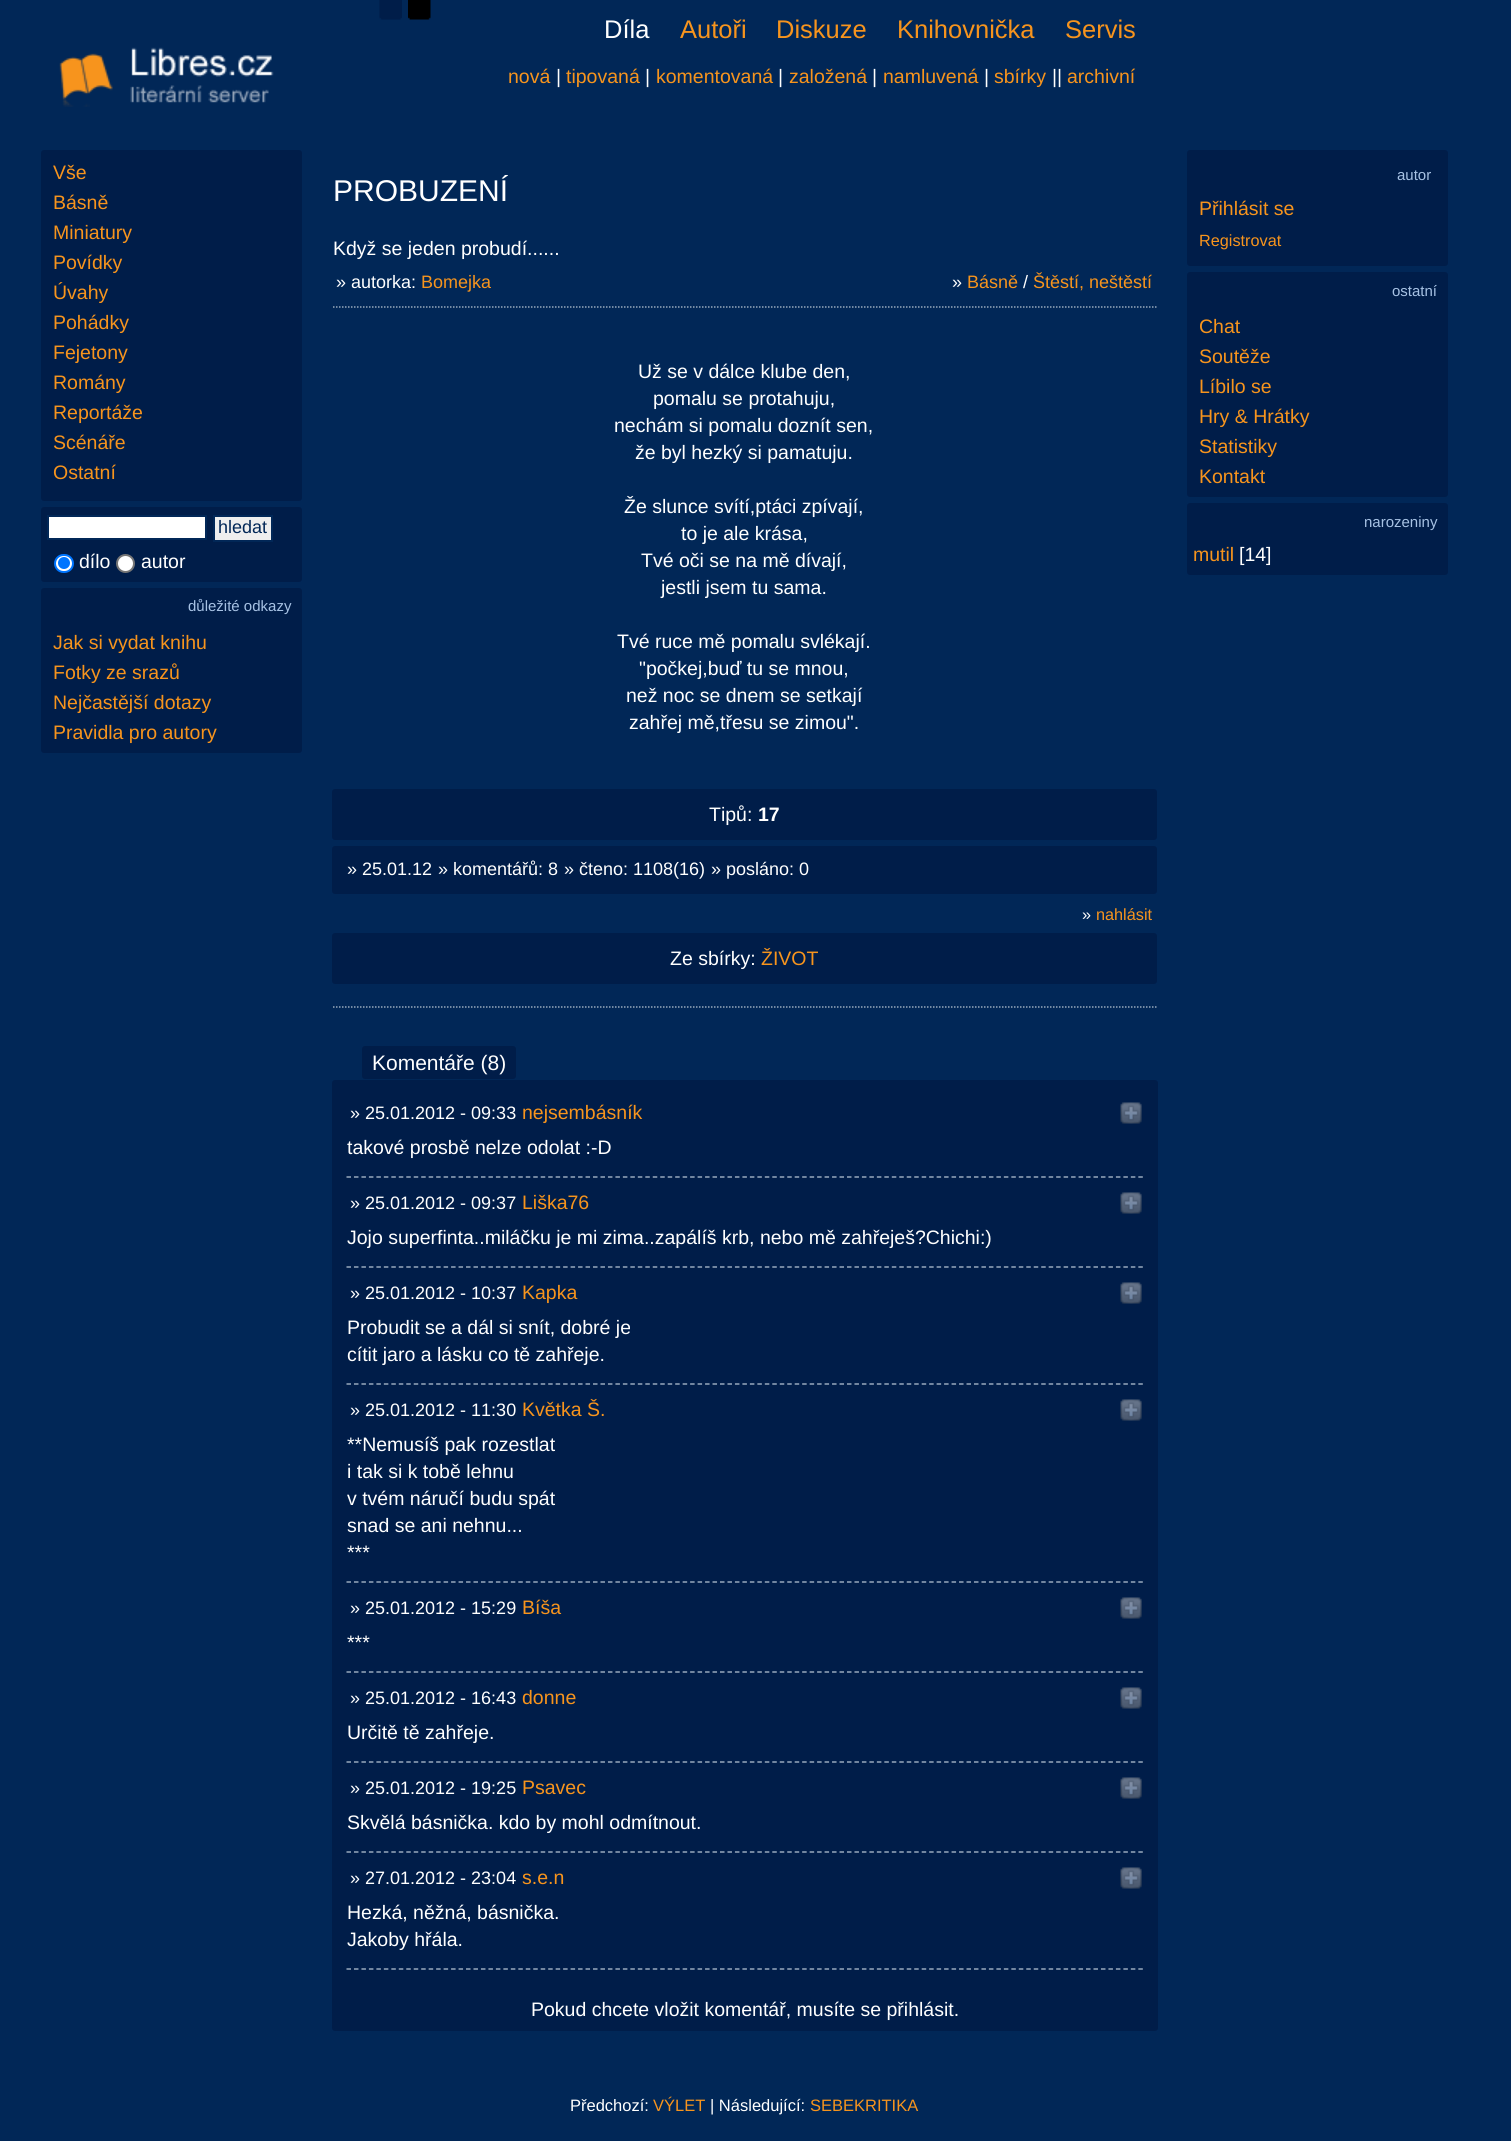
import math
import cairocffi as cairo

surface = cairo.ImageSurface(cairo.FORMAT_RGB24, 1511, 2141)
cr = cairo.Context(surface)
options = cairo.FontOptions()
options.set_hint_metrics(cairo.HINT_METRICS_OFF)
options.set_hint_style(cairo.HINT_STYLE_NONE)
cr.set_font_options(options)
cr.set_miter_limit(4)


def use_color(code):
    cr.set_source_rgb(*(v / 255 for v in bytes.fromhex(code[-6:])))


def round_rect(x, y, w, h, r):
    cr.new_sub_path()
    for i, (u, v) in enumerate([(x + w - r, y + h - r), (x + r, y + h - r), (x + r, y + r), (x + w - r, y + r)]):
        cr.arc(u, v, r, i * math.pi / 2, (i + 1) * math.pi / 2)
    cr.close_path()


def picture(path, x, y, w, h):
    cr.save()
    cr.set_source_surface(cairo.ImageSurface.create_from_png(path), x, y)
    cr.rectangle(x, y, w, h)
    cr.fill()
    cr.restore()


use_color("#012757")
cr.paint()
picture("img1.png", 379, 0, 23, 20)
picture("img2.png", 408, 0, 23, 20)
picture("img3.png", 59, 47, 215, 60)
cr.select_font_face("Liberation Sans")
cr.set_font_size(25.5)
use_color("#ffffff")
cr.move_to(604, 38)
cr.show_text("Díla")
use_color("#f7941d")
cr.move_to(680, 38)
cr.show_text("Autoři")
cr.move_to(776, 38)
cr.show_text("Diskuze")
cr.move_to(897, 38)
cr.show_text("Knihovnička")
cr.move_to(1065, 38)
cr.show_text("Servis")
cr.set_font_size(19.5)
cr.move_to(508, 83)
cr.show_text("nová")
use_color("#ffffff")
cr.move_to(556, 83)
cr.show_text("|")
use_color("#f7941d")
cr.move_to(566, 83)
cr.show_text("tipovaná")
use_color("#ffffff")
cr.move_to(645, 83)
cr.show_text("|")
use_color("#f7941d")
cr.move_to(656, 83)
cr.show_text("komentovaná")
use_color("#ffffff")
cr.move_to(778, 83)
cr.show_text("|")
use_color("#f7941d")
cr.move_to(789, 83)
cr.show_text("založená")
use_color("#ffffff")
cr.move_to(872, 83)
cr.show_text("|")
use_color("#f7941d")
cr.move_to(883, 83)
cr.show_text("namluvená")
use_color("#ffffff")
cr.move_to(984, 83)
cr.show_text("|")
use_color("#f7941d")
cr.move_to(994, 83)
cr.show_text("sbírky")
use_color("#ffffff")
cr.move_to(1052, 83)
cr.show_text("||")
use_color("#f7941d")
cr.move_to(1067, 83)
cr.show_text("archivní")
use_color("#001d49")
round_rect(41, 150, 261, 351, 3)
cr.fill()
use_color("#f7941d")
cr.move_to(53, 179)
cr.show_text("Vše")
cr.move_to(53, 209)
cr.show_text("Básně")
cr.move_to(53, 239)
cr.show_text("Miniatury")
cr.move_to(53, 269)
cr.show_text("Povídky")
cr.move_to(53, 299)
cr.show_text("Úvahy")
cr.move_to(53, 329)
cr.show_text("Pohádky")
cr.move_to(53, 359)
cr.show_text("Fejetony")
cr.move_to(53, 389)
cr.show_text("Romány")
cr.move_to(53, 419)
cr.show_text("Reportáže")
cr.move_to(53, 449)
cr.show_text("Scénáře")
cr.move_to(53, 479)
cr.show_text("Ostatní")
use_color("#001d49")
round_rect(41, 507, 261, 75, 3)
cr.fill()
use_color("#ffffff")
cr.rectangle(48, 516, 158, 23)
cr.fill_preserve()
use_color("#012757")
cr.stroke()
use_color("#eeeeee")
cr.rectangle(214, 516, 58, 25)
cr.fill_preserve()
use_color("#012757")
cr.stroke()
cr.set_font_size(18)
cr.move_to(218, 533)
cr.show_text("hledat")
use_color("#ffffff")
round_rect(55, 555, 18, 17, 8.5)
cr.fill_preserve()
use_color("#0075ff")
cr.stroke()
cr.arc(64, 563, 6, 0, 2 * math.pi)
cr.fill()
cr.set_font_size(19.5)
use_color("#ffffff")
cr.move_to(79, 568)
cr.show_text("dílo")
cr.new_path()
cr.arc(125.5, 563.5, 8.5, 0, 2 * math.pi)
cr.fill_preserve()
use_color("#767676")
cr.stroke()
use_color("#ffffff")
cr.move_to(141, 568)
cr.show_text("autor")
use_color("#001d49")
round_rect(41, 588, 261, 165, 3)
cr.fill()
cr.set_font_size(15)
use_color("#a7c2e4")
cr.move_to(188, 611)
cr.show_text("důležité odkazy")
cr.set_font_size(19.5)
use_color("#f7941d")
cr.move_to(53, 649)
cr.show_text("Jak si vydat knihu")
cr.move_to(53, 679)
cr.show_text("Fotky ze srazů")
cr.move_to(53, 709)
cr.show_text("Nejčastější dotazy")
cr.move_to(53, 739)
cr.show_text("Pravidla pro autory")
cr.set_font_size(30)
use_color("#ffffff")
cr.move_to(333, 201)
cr.show_text("PROBUZENÍ")
cr.set_font_size(19.5)
cr.move_to(333, 255)
cr.show_text("Když se jeden probudí......")
cr.set_font_size(18)
cr.move_to(336, 288)
cr.show_text("» autorka:")
use_color("#f7941d")
cr.move_to(421, 288)
cr.show_text("Bomejka")
use_color("#ffffff")
cr.move_to(952, 288)
cr.show_text("»")
use_color("#f7941d")
cr.move_to(967, 288)
cr.show_text("Básně")
use_color("#ffffff")
cr.move_to(1023, 288)
cr.show_text("/")
use_color("#f7941d")
cr.move_to(1033, 288)
cr.show_text("Štěstí, neštěstí")
cr.new_path()
cr.move_to(333, 307)
cr.line_to(1158, 307)
use_color("#98a9bd")
cr.set_line_width(1.5)
cr.set_dash([1.5, 1.5])
cr.stroke()
cr.set_font_size(19.5)
use_color("#ffffff")
cr.move_to(638, 378)
cr.show_text("Už se v dálce klube den,")
cr.move_to(653, 405)
cr.show_text("pomalu se protahuju,")
cr.move_to(614, 432)
cr.show_text("nechám si pomalu doznít sen,")
cr.move_to(635, 459)
cr.show_text("že byl hezký si pamatuju.")
cr.move_to(624, 513)
cr.show_text("Že slunce svítí,ptáci zpívají,")
cr.move_to(681, 540)
cr.show_text("to je ale krása,")
cr.move_to(641, 567)
cr.show_text("Tvé oči se na mě dívají,")
cr.move_to(661, 594)
cr.show_text("jestli jsem tu sama.")
cr.move_to(617, 648)
cr.show_text("Tvé ruce mě pomalu svlékají.")
cr.move_to(639, 675)
cr.show_text("\"počkej,buď tu se mnou,")
cr.move_to(626, 702)
cr.show_text("než noc se dnem se setkají")
cr.move_to(629, 729)
cr.show_text("zahřej mě,třesu se zimou\".")
use_color("#001d49")
round_rect(332, 789, 825, 51, 3)
cr.fill()
use_color("#ffffff")
cr.move_to(709, 821)
cr.show_text("Tipů:")
cr.select_font_face("Liberation Sans", cairo.FONT_SLANT_NORMAL, cairo.FONT_WEIGHT_BOLD)
cr.move_to(758, 821)
cr.show_text("17")
use_color("#001d49")
round_rect(332, 846, 825, 48, 3)
cr.fill()
cr.select_font_face("Liberation Sans")
cr.set_font_size(18)
use_color("#ffffff")
cr.move_to(347, 875)
cr.show_text("» 25.01.12")
cr.move_to(438, 875)
cr.show_text("» komentářů: 8")
cr.move_to(564, 875)
cr.show_text("» čteno: 1108(16)")
cr.move_to(711, 875)
cr.show_text("» posláno: 0")
cr.set_font_size(16.25)
cr.move_to(1082, 920)
cr.show_text("»")
use_color("#f7941d")
cr.move_to(1096, 920)
cr.show_text("nahlásit")
use_color("#001d49")
round_rect(332, 933, 825, 51, 3)
cr.fill()
cr.set_font_size(19.5)
use_color("#ffffff")
cr.move_to(670, 965)
cr.show_text("Ze sbírky:")
use_color("#f7941d")
cr.move_to(761, 965)
cr.show_text("ŽIVOT")
cr.new_path()
cr.move_to(333, 1007)
cr.line_to(1158, 1007)
use_color("#98a9bd")
cr.stroke()
use_color("#001d49")
round_rect(362, 1046, 154, 33, 3)
cr.fill()
cr.set_font_size(21)
use_color("#ffffff")
cr.move_to(372, 1070)
cr.show_text("Komentáře (8)")
use_color("#001d49")
round_rect(332, 1080, 826, 951, 3)
cr.fill()
cr.new_path()
cr.move_to(346.5, 1177)
cr.line_to(1143, 1177)
use_color("#98a9bd")
cr.set_dash([4.5, 2.97])
cr.stroke()
cr.set_font_size(18)
use_color("#ffffff")
cr.move_to(350, 1119)
cr.show_text("» 25.01.2012 - 09:33")
cr.set_font_size(19.5)
use_color("#f7941d")
cr.move_to(522, 1119)
cr.show_text("nejsembásník")
picture("img4.png", 1120, 1102, 22, 22)
use_color("#ffffff")
cr.move_to(347, 1154)
cr.show_text("takové prosbě nelze odolat :-D")
cr.new_path()
cr.move_to(346.5, 1267)
cr.line_to(1143, 1267)
use_color("#98a9bd")
cr.stroke()
cr.set_font_size(18)
use_color("#ffffff")
cr.move_to(350, 1209)
cr.show_text("» 25.01.2012 - 09:37")
cr.set_font_size(19.5)
use_color("#f7941d")
cr.move_to(522, 1209)
cr.show_text("Liška76")
picture("img4.png", 1120, 1192, 22, 22)
use_color("#ffffff")
cr.move_to(347, 1244)
cr.show_text("Jojo superfinta..miláčku je mi zima..zapálíš krb, nebo mě zahřeješ?Chichi:)")
cr.new_path()
cr.move_to(346.5, 1384)
cr.line_to(1143, 1384)
use_color("#98a9bd")
cr.stroke()
cr.set_font_size(18)
use_color("#ffffff")
cr.move_to(350, 1299)
cr.show_text("» 25.01.2012 - 10:37")
cr.set_font_size(19.5)
use_color("#f7941d")
cr.move_to(522, 1299)
cr.show_text("Kapka")
picture("img4.png", 1120, 1282, 22, 22)
use_color("#ffffff")
cr.move_to(347, 1334)
cr.show_text("Probudit se a dál si snít, dobré je")
cr.move_to(347, 1361)
cr.show_text("cítit jaro a lásku co tě zahřeje.")
cr.new_path()
cr.move_to(346.5, 1582)
cr.line_to(1143, 1582)
use_color("#98a9bd")
cr.stroke()
cr.set_font_size(18)
use_color("#ffffff")
cr.move_to(350, 1416)
cr.show_text("» 25.01.2012 - 11:30")
cr.set_font_size(19.5)
use_color("#f7941d")
cr.move_to(522, 1416)
cr.show_text("Květka Š.")
picture("img4.png", 1120, 1399, 22, 22)
use_color("#ffffff")
cr.move_to(347, 1451)
cr.show_text("**Nemusíš pak rozestlat")
cr.move_to(347, 1478)
cr.show_text("i tak si k tobě lehnu")
cr.move_to(347, 1505)
cr.show_text("v tvém náručí budu spát")
cr.move_to(347, 1532)
cr.show_text("snad se ani nehnu...")
cr.move_to(347, 1559)
cr.show_text("***")
cr.new_path()
cr.move_to(346.5, 1672)
cr.line_to(1143, 1672)
use_color("#98a9bd")
cr.stroke()
cr.set_font_size(18)
use_color("#ffffff")
cr.move_to(350, 1614)
cr.show_text("» 25.01.2012 - 15:29")
cr.set_font_size(19.5)
use_color("#f7941d")
cr.move_to(522, 1614)
cr.show_text("Bíša")
picture("img4.png", 1120, 1597, 22, 22)
use_color("#ffffff")
cr.move_to(347, 1649)
cr.show_text("***")
cr.new_path()
cr.move_to(346.5, 1762)
cr.line_to(1143, 1762)
use_color("#98a9bd")
cr.stroke()
cr.set_font_size(18)
use_color("#ffffff")
cr.move_to(350, 1704)
cr.show_text("» 25.01.2012 - 16:43")
cr.set_font_size(19.5)
use_color("#f7941d")
cr.move_to(522, 1704)
cr.show_text("donne")
picture("img4.png", 1120, 1687, 22, 22)
use_color("#ffffff")
cr.move_to(347, 1739)
cr.show_text("Určitě tě zahřeje.")
cr.new_path()
cr.move_to(346.5, 1852)
cr.line_to(1143, 1852)
use_color("#98a9bd")
cr.stroke()
cr.set_font_size(18)
use_color("#ffffff")
cr.move_to(350, 1794)
cr.show_text("» 25.01.2012 - 19:25")
cr.set_font_size(19.5)
use_color("#f7941d")
cr.move_to(522, 1794)
cr.show_text("Psavec")
picture("img4.png", 1120, 1777, 22, 22)
use_color("#ffffff")
cr.move_to(347, 1829)
cr.show_text("Skvělá básnička. kdo by mohl odmítnout.")
cr.new_path()
cr.move_to(346.5, 1969)
cr.line_to(1143, 1969)
use_color("#98a9bd")
cr.stroke()
cr.set_font_size(18)
use_color("#ffffff")
cr.move_to(350, 1884)
cr.show_text("» 27.01.2012 - 23:04")
cr.set_font_size(19.5)
use_color("#f7941d")
cr.move_to(522, 1884)
cr.show_text("s.e.n")
picture("img4.png", 1120, 1867, 22, 22)
use_color("#ffffff")
cr.move_to(347, 1919)
cr.show_text("Hezká, něžná, básnička.")
cr.move_to(347, 1946)
cr.show_text("Jakoby hřála.")
cr.move_to(531, 2016)
cr.show_text("Pokud chcete vložit komentář, musíte se přihlásit.")
cr.set_font_size(16.5)
cr.move_to(570, 2111)
cr.show_text("Předchozí:")
use_color("#f7941d")
cr.move_to(653, 2111)
cr.show_text("VÝLET")
use_color("#ffffff")
cr.move_to(710, 2111)
cr.show_text("| Následující:")
use_color("#f7941d")
cr.move_to(810, 2111)
cr.show_text("SEBEKRITIKA")
use_color("#001d49")
round_rect(1187, 150, 261, 116, 3)
cr.fill()
cr.set_font_size(15)
use_color("#a7c2e4")
cr.move_to(1397, 180)
cr.show_text("autor")
cr.set_font_size(19.5)
use_color("#f7941d")
cr.move_to(1199, 215)
cr.show_text("Přihlásit se")
cr.set_font_size(16.25)
cr.move_to(1199, 246)
cr.show_text("Registrovat")
use_color("#001d49")
round_rect(1187, 272, 261, 225, 3)
cr.fill()
cr.set_font_size(15)
use_color("#a7c2e4")
cr.move_to(1392, 296)
cr.show_text("ostatní")
cr.set_font_size(19.5)
use_color("#f7941d")
cr.move_to(1199, 333)
cr.show_text("Chat")
cr.move_to(1199, 363)
cr.show_text("Soutěže")
cr.move_to(1199, 393)
cr.show_text("Líbilo se")
cr.move_to(1199, 423)
cr.show_text("Hry & Hrátky")
cr.move_to(1199, 453)
cr.show_text("Statistiky")
cr.move_to(1199, 483)
cr.show_text("Kontakt")
use_color("#001d49")
round_rect(1187, 503, 261, 72, 3)
cr.fill()
cr.set_font_size(15)
use_color("#a7c2e4")
cr.move_to(1364, 527)
cr.show_text("narozeniny")
cr.set_font_size(19.5)
use_color("#f7941d")
cr.move_to(1193, 561)
cr.show_text("mutil")
use_color("#ffffff")
cr.move_to(1239, 561)
cr.show_text("[14]")
surface.write_to_png("result.png")
